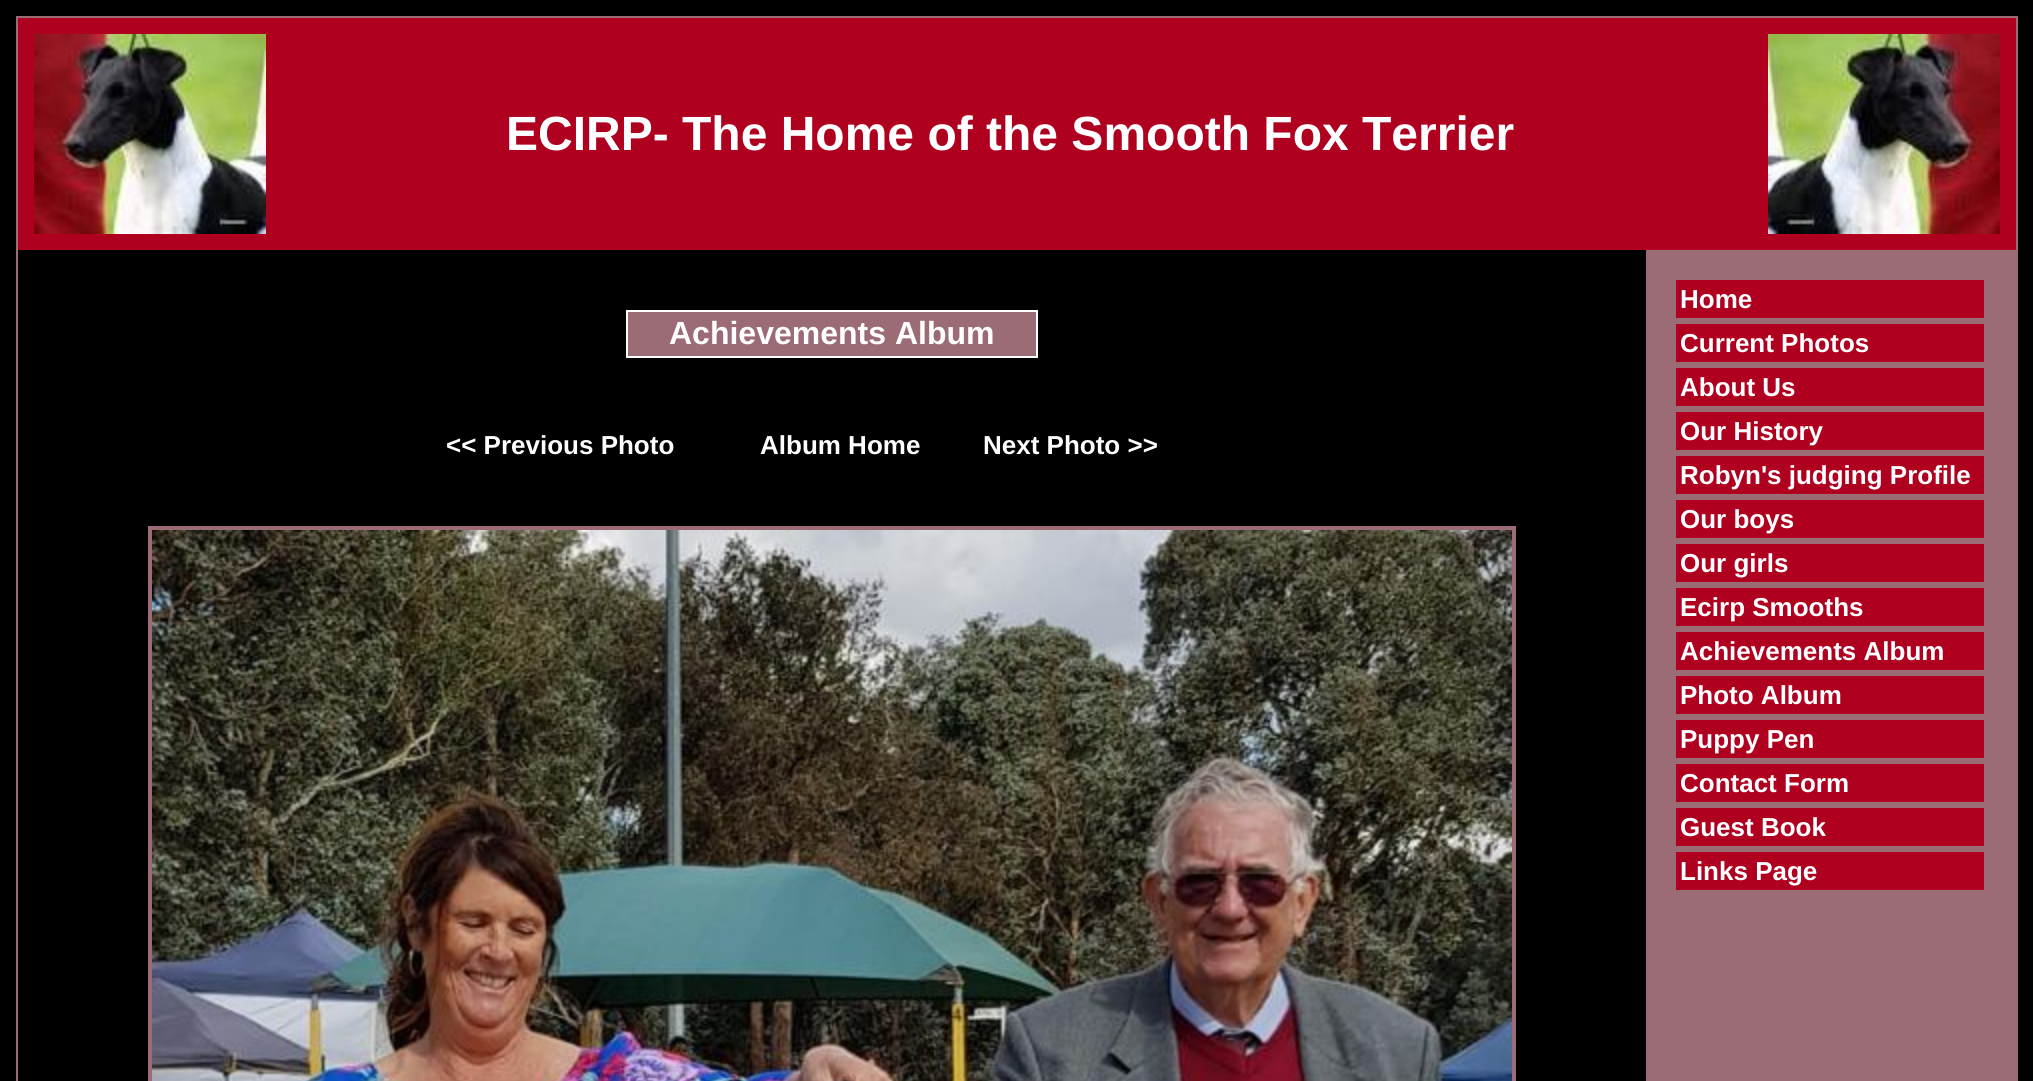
import math
import cairocffi as cairo

surface = cairo.ImageSurface(cairo.FORMAT_RGB24, 2033, 1081)
cr = cairo.Context(surface)
options = cairo.FontOptions()
options.set_hint_metrics(cairo.HINT_METRICS_OFF)
options.set_hint_style(cairo.HINT_STYLE_NONE)
cr.set_font_options(options)
cr.set_miter_limit(4)


def use_color(code):
    cr.set_source_rgb(*(v / 255 for v in bytes.fromhex(code[-6:])))


def picture(path, x, y, w, h):
    cr.save()
    cr.set_source_surface(cairo.ImageSurface.create_from_png(path), x, y)
    cr.rectangle(x, y, w, h)
    cr.fill()
    cr.restore()


use_color("#000000")
cr.paint()
cr.rectangle(17, 17, 2000, 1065)
use_color("#9c6c76")
cr.stroke()
use_color("#af0020")
cr.rectangle(18, 18, 1998, 232)
cr.fill()
picture("img1.png", 34, 34, 232, 200)
cr.select_font_face("Liberation Sans", cairo.FONT_SLANT_NORMAL, cairo.FONT_WEIGHT_BOLD)
cr.set_font_size(48)
use_color("#ffffff")
cr.move_to(506, 150)
cr.show_text("ECIRP- The Home of the Smooth Fox Terrier")
picture("img2.png", 1768, 34, 232, 200)
use_color("#9c6c76")
cr.rectangle(627, 311, 410, 46)
cr.fill_preserve()
use_color("#ffffff")
cr.stroke()
cr.set_font_size(32)
cr.move_to(669, 344)
cr.show_text("Achievements Album")
cr.set_font_size(26)
cr.move_to(446, 454)
cr.show_text("<< Previous Photo")
cr.move_to(760, 454)
cr.show_text("Album Home")
cr.move_to(983, 454)
cr.show_text("Next Photo >>")
use_color("#9c6c76")
cr.rectangle(148, 526, 1368, 555)
cr.fill()
picture("img3.png", 152, 530, 1360, 551)
cr.rectangle(1646, 250, 370, 831)
cr.fill()
use_color("#af0020")
cr.rectangle(1676, 280, 308, 38)
cr.fill()
use_color("#ffffff")
cr.move_to(1680, 308)
cr.show_text("Home")
use_color("#af0020")
cr.rectangle(1676, 324, 308, 38)
cr.fill()
use_color("#ffffff")
cr.move_to(1680, 352)
cr.show_text("Current Photos")
use_color("#af0020")
cr.rectangle(1676, 368, 308, 38)
cr.fill()
use_color("#ffffff")
cr.move_to(1680, 396)
cr.show_text("About Us")
use_color("#af0020")
cr.rectangle(1676, 412, 308, 38)
cr.fill()
use_color("#ffffff")
cr.move_to(1680, 440)
cr.show_text("Our History")
use_color("#af0020")
cr.rectangle(1676, 456, 308, 38)
cr.fill()
use_color("#ffffff")
cr.move_to(1680, 484)
cr.show_text("Robyn's judging Profile")
use_color("#af0020")
cr.rectangle(1676, 500, 308, 38)
cr.fill()
use_color("#ffffff")
cr.move_to(1680, 528)
cr.show_text("Our boys")
use_color("#af0020")
cr.rectangle(1676, 544, 308, 38)
cr.fill()
use_color("#ffffff")
cr.move_to(1680, 572)
cr.show_text("Our girls")
use_color("#af0020")
cr.rectangle(1676, 588, 308, 38)
cr.fill()
use_color("#ffffff")
cr.move_to(1680, 616)
cr.show_text("Ecirp Smooths")
use_color("#af0020")
cr.rectangle(1676, 632, 308, 38)
cr.fill()
use_color("#ffffff")
cr.move_to(1680, 660)
cr.show_text("Achievements Album")
use_color("#af0020")
cr.rectangle(1676, 676, 308, 38)
cr.fill()
use_color("#ffffff")
cr.move_to(1680, 704)
cr.show_text("Photo Album")
use_color("#af0020")
cr.rectangle(1676, 720, 308, 38)
cr.fill()
use_color("#ffffff")
cr.move_to(1680, 748)
cr.show_text("Puppy Pen")
use_color("#af0020")
cr.rectangle(1676, 764, 308, 38)
cr.fill()
use_color("#ffffff")
cr.move_to(1680, 792)
cr.show_text("Contact Form")
use_color("#af0020")
cr.rectangle(1676, 808, 308, 38)
cr.fill()
use_color("#ffffff")
cr.move_to(1680, 836)
cr.show_text("Guest Book")
use_color("#af0020")
cr.rectangle(1676, 852, 308, 38)
cr.fill()
use_color("#ffffff")
cr.move_to(1680, 880)
cr.show_text("Links Page")
surface.write_to_png("result.png")
